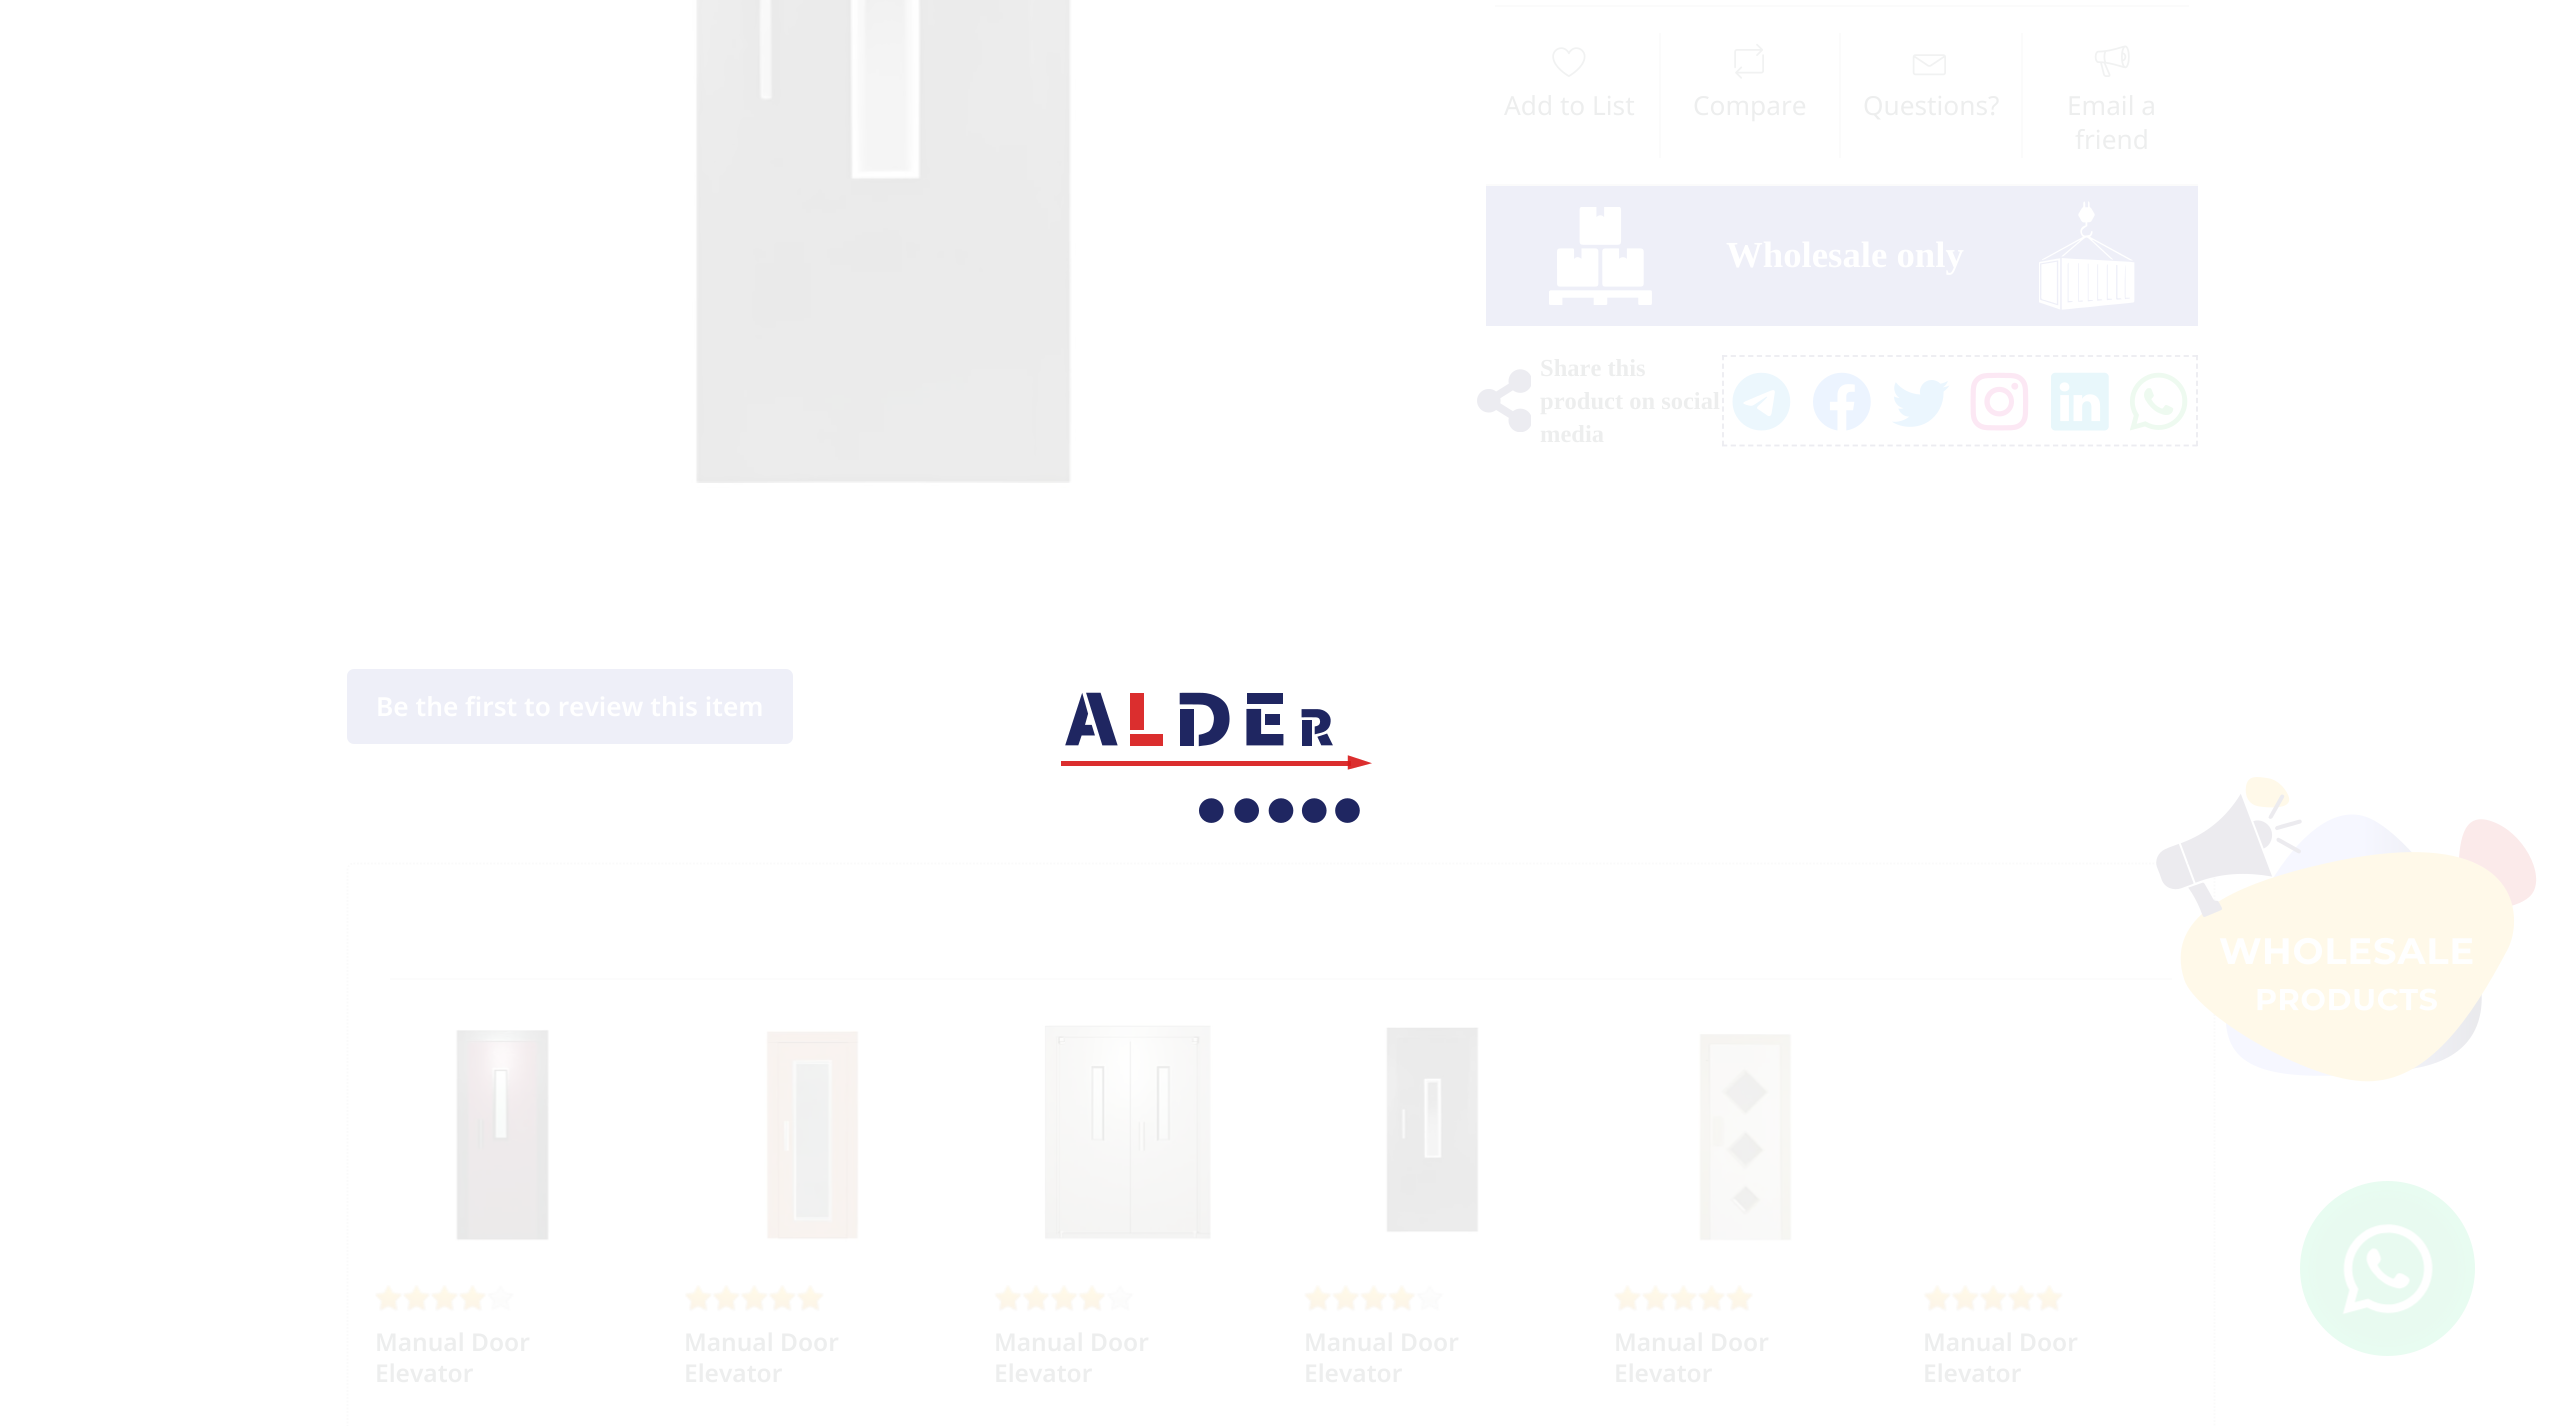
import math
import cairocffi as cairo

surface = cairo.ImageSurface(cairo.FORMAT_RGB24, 2561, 1426)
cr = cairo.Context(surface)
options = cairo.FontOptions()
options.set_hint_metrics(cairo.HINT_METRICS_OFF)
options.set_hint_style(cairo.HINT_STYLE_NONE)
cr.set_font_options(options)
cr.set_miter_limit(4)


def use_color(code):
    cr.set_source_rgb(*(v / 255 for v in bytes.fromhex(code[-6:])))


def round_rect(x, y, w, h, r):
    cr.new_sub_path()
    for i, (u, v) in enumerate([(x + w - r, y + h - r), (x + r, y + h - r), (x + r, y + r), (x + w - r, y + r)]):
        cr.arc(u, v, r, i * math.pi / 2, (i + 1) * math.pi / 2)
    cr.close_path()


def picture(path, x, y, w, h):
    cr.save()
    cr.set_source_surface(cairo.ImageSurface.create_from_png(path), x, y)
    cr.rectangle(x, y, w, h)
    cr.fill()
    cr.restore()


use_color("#ffffff")
cr.paint()
picture("img1.png", 691, 0, 385, 489)
use_color("#fbfbfb")
cr.rectangle(1495, 5, 694, 2)
cr.fill()
cr.rectangle(1659, 33, 2, 125)
cr.fill()
picture("img2.png", 1552, 47, 34, 30)
cr.select_font_face("Noto Sans")
cr.set_font_size(26.25)
use_color("#edeeee")
cr.move_to(1504, 115)
cr.show_text("Add to List")
use_color("#fbfbfb")
cr.rectangle(1839, 33, 2, 125)
cr.fill()
picture("img3.png", 1734, 43, 30, 36)
use_color("#edeeee")
cr.move_to(1693, 115)
cr.show_text("Compare")
use_color("#fbfbfb")
cr.rectangle(2021, 33, 2, 125)
cr.fill()
picture("img4.png", 1912, 54, 34, 22)
use_color("#edeeee")
cr.move_to(1863, 115)
cr.show_text("Questions?")
picture("img5.png", 2094, 45, 36, 32)
cr.move_to(2067, 115)
cr.show_text("Email a")
cr.move_to(2075, 149)
cr.show_text("friend")
use_color("#fbfbfb")
cr.rectangle(1486, 184, 712, 2)
cr.fill()
use_color("#eeeff8")
cr.rectangle(1486, 186, 712, 140)
cr.fill()
picture("img6.png", 1549, 207, 103, 98)
cr.select_font_face("Liberation Serif", cairo.FONT_SLANT_NORMAL, cairo.FONT_WEIGHT_BOLD)
cr.set_font_size(36.75)
use_color("#ffffff")
cr.move_to(1726, 267)
cr.show_text("Wholesale only")
picture("img7.png", 2039, 201, 96, 109)
picture("img8.png", 1477, 369, 54, 63)
cr.set_font_size(24.5)
use_color("#edeeee")
cr.move_to(1540, 376)
cr.show_text("Share this")
cr.move_to(1540, 409)
cr.show_text("product on social")
cr.move_to(1540, 442)
cr.show_text("media")
cr.new_path()
cr.move_to(1722, 356)
cr.line_to(2198, 356)
use_color("#ececf1")
cr.set_line_width(1.8)
cr.set_dash([5.25, 3.46])
cr.stroke()
cr.new_path()
cr.move_to(2197, 355)
cr.line_to(2197, 446)
cr.set_dash([5.25, 3.32])
cr.stroke()
cr.new_path()
cr.move_to(1722, 445.5)
cr.line_to(2198, 445.5)
cr.set_dash([5.25, 3.46])
cr.stroke()
cr.new_path()
cr.move_to(1723, 355)
cr.line_to(1723, 446)
cr.set_dash([5.25, 3.32])
cr.stroke()
picture("img9.png", 1732, 372, 59, 59)
picture("img10.png", 1813, 372, 58, 59)
picture("img11.png", 1892, 380, 58, 47)
picture("img12.png", 1970, 372, 59, 59)
picture("img13.png", 2051, 372, 58, 59)
picture("img14.png", 2129, 372, 59, 59)
use_color("#eeeff8")
round_rect(348, 670, 444, 73, 6)
cr.fill_preserve()
cr.set_line_width(2)
cr.set_dash([])
cr.stroke()
cr.select_font_face("Noto Sans SemiBold")
cr.set_font_size(26.25)
use_color("#ffffff")
cr.move_to(376, 716)
cr.show_text("Be the first to review this item")
cr.new_path()
cr.move_to(353.5, 863.5)
cr.line_to(2208.5, 863.5)
cr.curve_to(2212, 863.5, 2214.5, 866.5, 2214.5, 870)
cr.line_to(2214.5, 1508.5)
cr.curve_to(2214.5, 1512, 2212, 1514.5, 2208.5, 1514.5)
cr.line_to(353.5, 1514.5)
cr.curve_to(350, 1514.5, 347.5, 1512, 347.5, 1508.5)
cr.line_to(347.5, 870)
cr.curve_to(347.5, 866.5, 350, 863.5, 353.5, 863.5)
cr.close_path()
use_color("#fafafa")
cr.set_line_width(1.8)
cr.set_dash([1.75, 1.75])
cr.stroke()
use_color("#fcfcfc")
cr.rectangle(390, 978, 1782, 2)
cr.fill()
picture("img15.png", 454, 1027, 96, 215)
picture("img16.png", 375, 1285, 140, 26)
picture("img17.png", 375, 1285, 112, 27)
cr.set_font_size(24.5)
use_color("#edeeee")
cr.move_to(375, 1351)
cr.show_text("Manual Door")
cr.move_to(375, 1382)
cr.show_text("Elevator")
picture("img18.png", 764, 1028, 96, 216)
picture("img19.png", 684, 1285, 140, 26)
picture("img20.png", 684, 1285, 141, 27)
cr.move_to(684, 1351)
cr.show_text("Manual Door")
cr.move_to(684, 1382)
cr.show_text("Elevator")
picture("img21.png", 1042, 1023, 172, 219)
picture("img22.png", 994, 1285, 140, 26)
picture("img23.png", 994, 1285, 112, 27)
cr.move_to(994, 1351)
cr.show_text("Manual Door")
cr.move_to(994, 1382)
cr.show_text("Elevator")
picture("img24.png", 1383, 1027, 97, 208)
picture("img25.png", 1304, 1285, 140, 26)
picture("img26.png", 1304, 1285, 112, 27)
cr.move_to(1304, 1351)
cr.show_text("Manual Door")
cr.move_to(1304, 1382)
cr.show_text("Elevator")
picture("img27.png", 1697, 1031, 97, 220)
picture("img16.png", 1614, 1285, 140, 26)
picture("img28.png", 1613, 1285, 141, 27)
cr.move_to(1614, 1351)
cr.show_text("Manual Door")
cr.move_to(1614, 1382)
cr.show_text("Elevator")
picture("img29.png", 1923, 1285, 140, 27)
picture("img30.png", 1923, 1285, 141, 27)
cr.move_to(1923, 1351)
cr.show_text("Manual Door")
cr.move_to(1923, 1382)
cr.show_text("Elevator")
use_color("#e8fcf1")
cr.new_path()
cr.arc(2387.5, 1268.5, 87.5, 0, 2 * math.pi)
cr.fill()
picture("img31.png", 2308, 1190, 158, 157)
picture("img32.png", 1061, 692, 311, 131)
picture("img33.png", 2156, 777, 381, 305)
surface.write_to_png("result.png")
